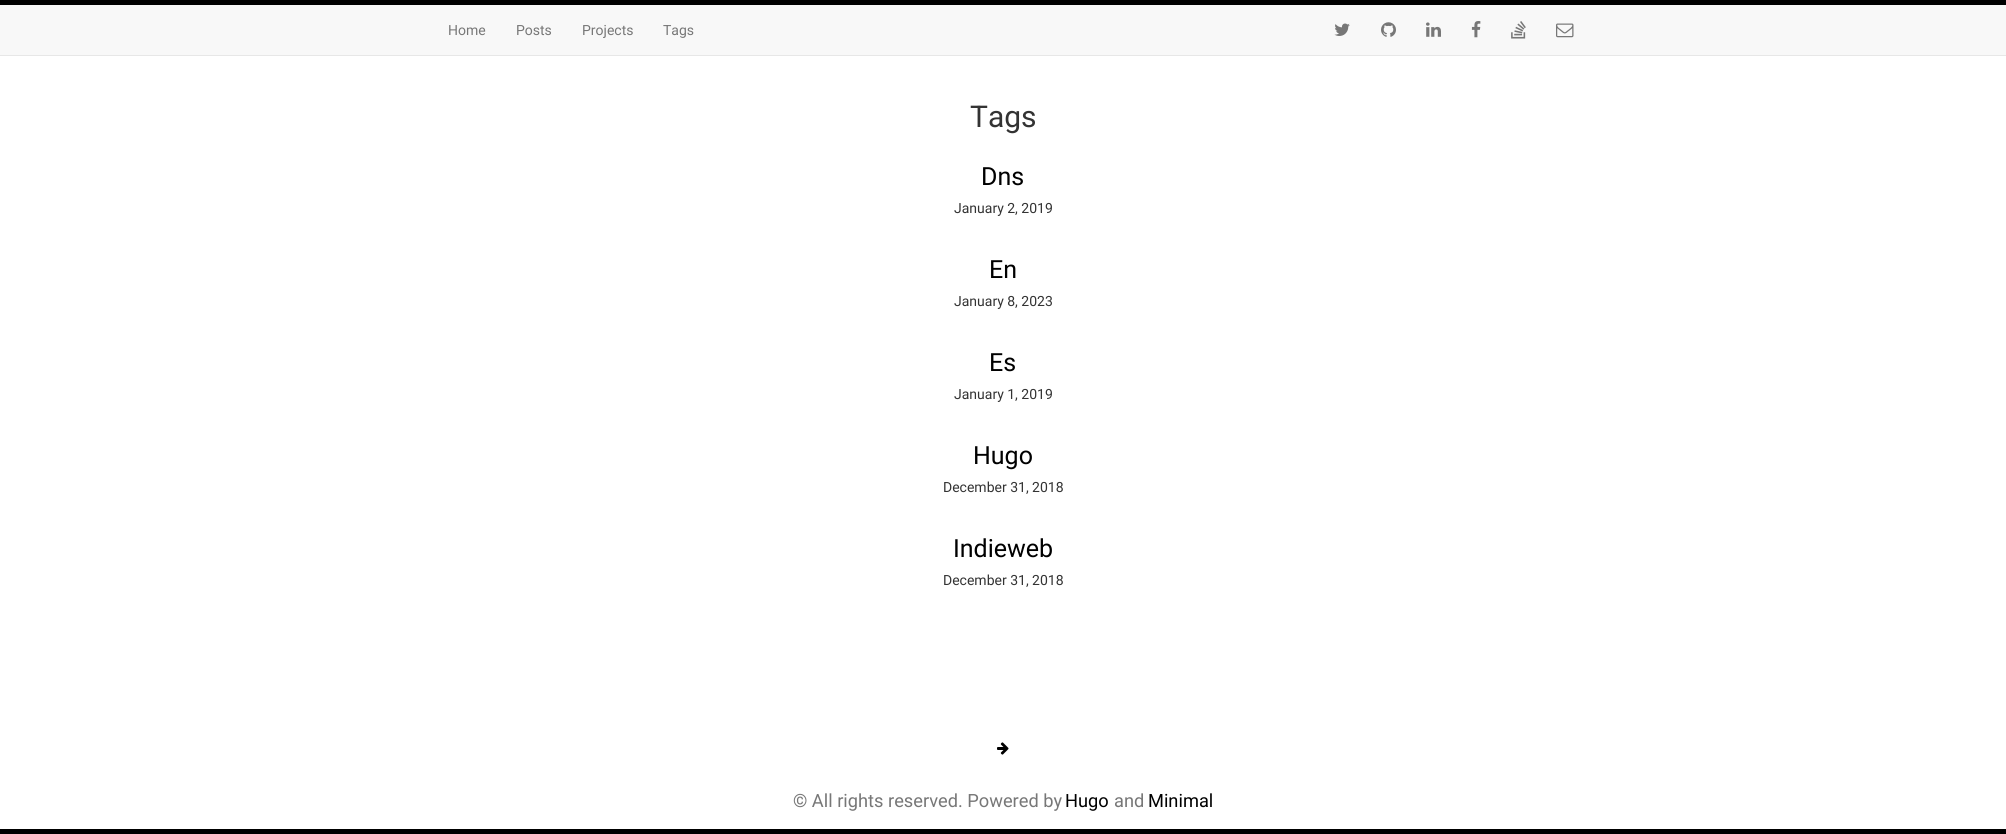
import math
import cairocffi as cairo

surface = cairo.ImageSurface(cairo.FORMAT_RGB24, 2006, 834)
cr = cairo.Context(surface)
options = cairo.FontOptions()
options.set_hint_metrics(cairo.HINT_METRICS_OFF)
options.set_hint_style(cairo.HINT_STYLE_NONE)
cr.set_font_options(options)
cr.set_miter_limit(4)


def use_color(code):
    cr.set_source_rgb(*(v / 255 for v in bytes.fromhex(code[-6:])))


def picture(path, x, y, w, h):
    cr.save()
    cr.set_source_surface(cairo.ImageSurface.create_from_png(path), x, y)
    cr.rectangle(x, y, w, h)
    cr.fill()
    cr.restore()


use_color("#ffffff")
cr.paint()
use_color("#f8f8f8")
cr.rectangle(0, 5, 2006, 50)
cr.fill()
use_color("#000000")
cr.rectangle(0, 0, 2006, 5)
cr.fill()
use_color("#e7e7e7")
cr.rectangle(0, 55, 2006, 1)
cr.fill()
cr.select_font_face("Roboto")
cr.set_font_size(14)
use_color("#777777")
cr.move_to(448, 35)
cr.show_text("Home")
cr.move_to(516, 35)
cr.show_text("Posts")
cr.move_to(582, 35)
cr.show_text("Projects")
cr.move_to(663, 35)
cr.show_text("Tags")
picture("img1.png", 1334, 23, 16, 13)
picture("img2.png", 1381, 22, 15, 15)
picture("img3.png", 1426, 22, 15, 15)
picture("img4.png", 1471, 21, 10, 17)
picture("img5.png", 1511, 21, 15, 18)
picture("img6.png", 1556, 23, 18, 15)
cr.set_font_size(30)
use_color("#333333")
cr.move_to(970, 127)
cr.show_text("Tags")
cr.set_font_size(25)
use_color("#000000")
cr.move_to(981, 185)
cr.show_text("Dns")
cr.set_font_size(14)
use_color("#333333")
cr.move_to(954, 213)
cr.show_text("January 2, 2019")
cr.set_font_size(25)
use_color("#000000")
cr.move_to(989, 278)
cr.show_text("En")
cr.set_font_size(14)
use_color("#333333")
cr.move_to(954, 306)
cr.show_text("January 8, 2023")
cr.set_font_size(25)
use_color("#000000")
cr.move_to(989, 371)
cr.show_text("Es")
cr.set_font_size(14)
use_color("#333333")
cr.move_to(954, 399)
cr.show_text("January 1, 2019")
cr.set_font_size(25)
use_color("#000000")
cr.move_to(973, 464)
cr.show_text("Hugo")
cr.set_font_size(14)
use_color("#333333")
cr.move_to(943, 492)
cr.show_text("December 31, 2018")
cr.set_font_size(25)
use_color("#000000")
cr.move_to(953, 557)
cr.show_text("Indieweb")
cr.set_font_size(14)
use_color("#333333")
cr.move_to(943, 585)
cr.show_text("December 31, 2018")
picture("img7.png", 997, 742, 12, 13)
use_color("#000000")
cr.rectangle(0, 829, 2006, 5)
cr.fill()
cr.set_font_size(18.25)
use_color("#777777")
cr.move_to(793, 807)
cr.show_text("© All rights reserved. Powered by")
use_color("#000000")
cr.move_to(1065, 807)
cr.show_text("Hugo")
use_color("#777777")
cr.move_to(1114, 807)
cr.show_text("and")
use_color("#000000")
cr.move_to(1148, 807)
cr.show_text("Minimal")
surface.write_to_png("result.png")
